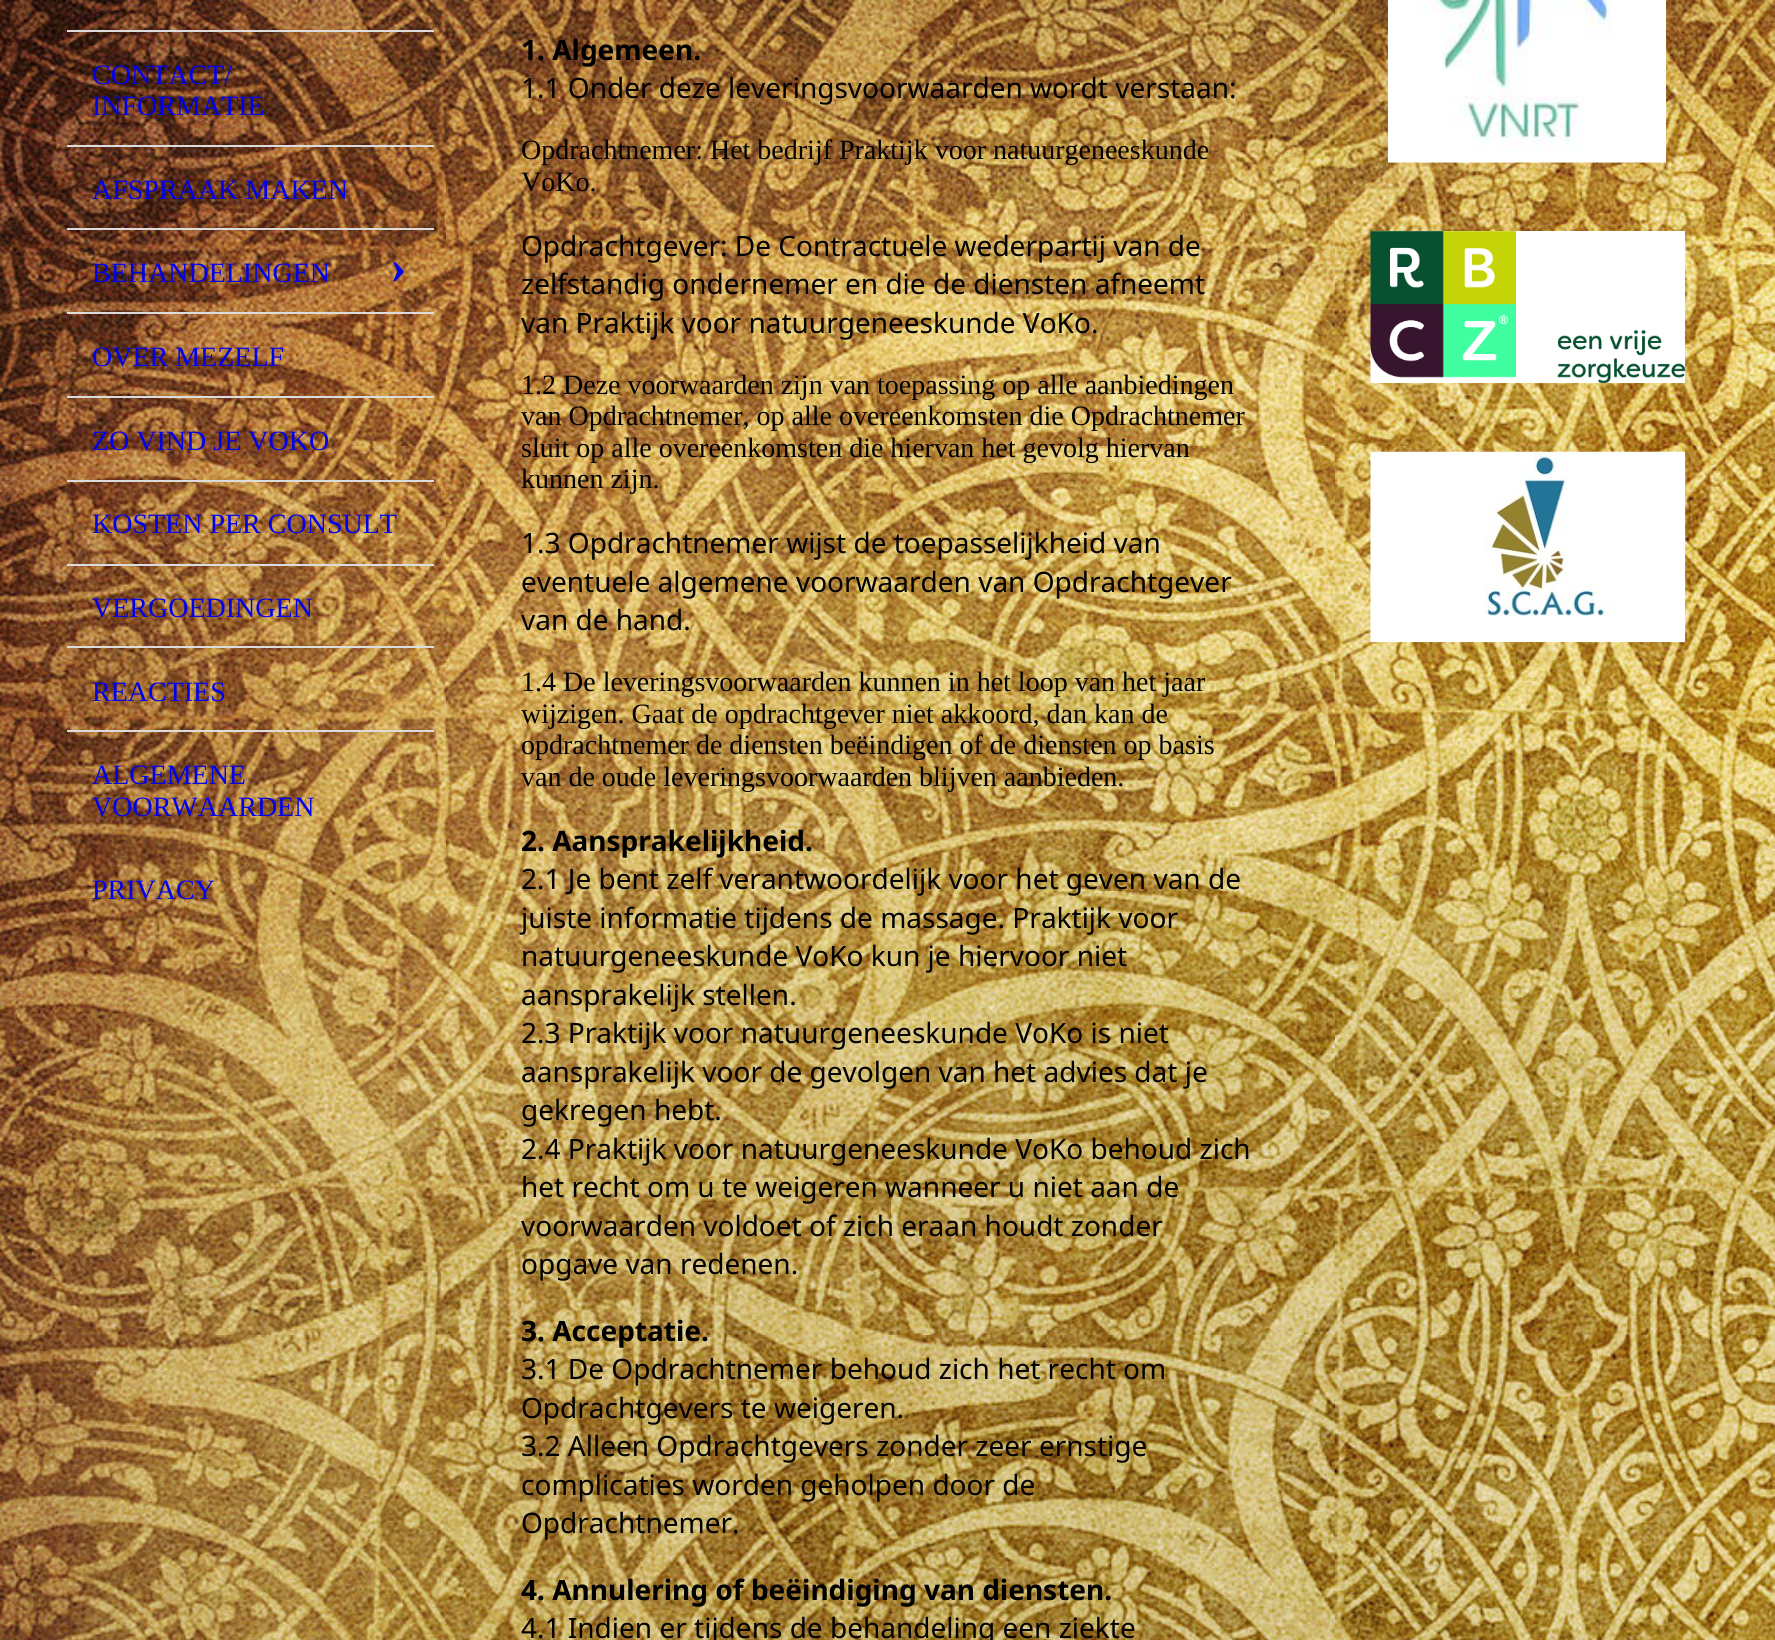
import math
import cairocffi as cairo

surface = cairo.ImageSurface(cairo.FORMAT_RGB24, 1775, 1640)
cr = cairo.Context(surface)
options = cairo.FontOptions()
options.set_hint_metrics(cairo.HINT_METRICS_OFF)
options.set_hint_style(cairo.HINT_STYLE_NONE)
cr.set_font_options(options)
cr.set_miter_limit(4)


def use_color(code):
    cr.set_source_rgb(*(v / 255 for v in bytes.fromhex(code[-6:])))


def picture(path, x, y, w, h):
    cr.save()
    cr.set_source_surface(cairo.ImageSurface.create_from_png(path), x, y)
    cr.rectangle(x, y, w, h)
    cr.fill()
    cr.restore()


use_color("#ffffff")
cr.paint()
picture("img1.png", 0, 0, 1775, 1640)
use_color("#dcdcdc")
cr.rectangle(67, 30, 367, 2)
cr.fill()
cr.rectangle(67, 145, 367, 2)
cr.fill()
cr.select_font_face("Liberation Serif")
cr.set_font_size(28)
use_color("#0000ee")
cr.move_to(92, 84)
cr.show_text("CONTACT/")
cr.move_to(92, 115)
cr.show_text("INFORMATIE")
use_color("#dcdcdc")
cr.rectangle(67, 228, 367, 2)
cr.fill()
use_color("#0000ee")
cr.move_to(92, 199)
cr.show_text("AFSPRAAK MAKEN")
use_color("#dcdcdc")
cr.rectangle(67, 312, 367, 2)
cr.fill()
use_color("#0000ee")
cr.move_to(92, 282)
cr.show_text("BEHANDELINGEN")
cr.select_font_face("Liberation Serif", cairo.FONT_SLANT_NORMAL, cairo.FONT_WEIGHT_BOLD)
cr.set_font_size(50)
cr.move_to(390, 283)
cr.show_text("›")
use_color("#dcdcdc")
cr.rectangle(67, 396, 367, 2)
cr.fill()
cr.select_font_face("Liberation Serif")
cr.set_font_size(28)
use_color("#0000ee")
cr.move_to(92, 366)
cr.show_text("OVER MEZELF")
use_color("#dcdcdc")
cr.rectangle(67, 480, 367, 2)
cr.fill()
use_color("#0000ee")
cr.move_to(92, 450)
cr.show_text("ZO VIND JE VOKO")
use_color("#dcdcdc")
cr.rectangle(67, 564, 367, 2)
cr.fill()
use_color("#0000ee")
cr.move_to(92, 533)
cr.show_text("KOSTEN PER CONSULT")
use_color("#dcdcdc")
cr.rectangle(67, 646, 367, 2)
cr.fill()
use_color("#0000ee")
cr.move_to(92, 617)
cr.show_text("VERGOEDINGEN")
use_color("#dcdcdc")
cr.rectangle(67, 730, 367, 2)
cr.fill()
use_color("#0000ee")
cr.move_to(92, 701)
cr.show_text("REACTIES")
cr.move_to(92, 784)
cr.show_text("ALGEMENE")
cr.move_to(92, 816)
cr.show_text("VOORWAARDEN")
cr.move_to(92, 899)
cr.show_text("PRIVACY")
cr.select_font_face("Noto Sans", cairo.FONT_SLANT_NORMAL, cairo.FONT_WEIGHT_BOLD)
use_color("#000000")
cr.move_to(521, 60)
cr.show_text("1. Algemeen.")
cr.select_font_face("Noto Sans")
cr.move_to(521, 98)
cr.show_text("1.1 Onder deze leveringsvoorwaarden wordt verstaan:")
cr.select_font_face("Liberation Serif")
cr.move_to(521, 159)
cr.show_text("Opdrachtnemer: Het bedrijf Praktijk voor natuurgeneeskunde")
cr.move_to(521, 191)
cr.show_text("VoKo.")
cr.select_font_face("Noto Sans")
cr.move_to(521, 256)
cr.show_text("Opdrachtgever: De Contractuele wederpartij van de")
cr.move_to(521, 294)
cr.show_text("zelfstandig ondernemer en die de diensten afneemt")
cr.move_to(521, 333)
cr.show_text("van Praktijk voor natuurgeneeskunde VoKo.")
cr.select_font_face("Liberation Serif")
cr.move_to(521, 394)
cr.show_text("1.2 Deze voorwaarden zijn van toepassing op alle aanbiedingen")
cr.move_to(521, 425)
cr.show_text("van Opdrachtnemer, op alle overeenkomsten die Opdrachtnemer")
cr.move_to(521, 457)
cr.show_text("sluit op alle overeenkomsten die hiervan het gevolg hiervan")
cr.move_to(521, 488)
cr.show_text("kunnen zijn.")
cr.select_font_face("Noto Sans")
cr.move_to(521, 553)
cr.show_text("1.3 Opdrachtnemer wijst de toepasselijkheid van")
cr.move_to(521, 592)
cr.show_text("eventuele algemene voorwaarden van Opdrachtgever")
cr.move_to(521, 630)
cr.show_text("van de hand.")
cr.select_font_face("Liberation Serif")
cr.move_to(521, 691)
cr.show_text("1.4 De leveringsvoorwaarden kunnen in het loop van het jaar")
cr.move_to(521, 723)
cr.show_text("wijzigen. Gaat de opdrachtgever niet akkoord, dan kan de")
cr.move_to(521, 754)
cr.show_text("opdrachtnemer de diensten beëindigen of de diensten op basis")
cr.move_to(521, 786)
cr.show_text("van de oude leveringsvoorwaarden blijven aanbieden.")
cr.select_font_face("Noto Sans", cairo.FONT_SLANT_NORMAL, cairo.FONT_WEIGHT_BOLD)
cr.move_to(521, 851)
cr.show_text("2. Aansprakelijkheid.")
cr.select_font_face("Noto Sans")
cr.move_to(521, 889)
cr.show_text("2.1 Je bent zelf verantwoordelijk voor het geven van de")
cr.move_to(521, 928)
cr.show_text("juiste informatie tijdens de massage. Praktijk voor")
cr.move_to(521, 966)
cr.show_text("natuurgeneeskunde VoKo kun je hiervoor niet")
cr.move_to(521, 1005)
cr.show_text("aansprakelijk stellen.")
cr.move_to(521, 1043)
cr.show_text("2.3 Praktijk voor natuurgeneeskunde VoKo is niet")
cr.move_to(521, 1082)
cr.show_text("aansprakelijk voor de gevolgen van het advies dat je")
cr.move_to(521, 1120)
cr.show_text("gekregen hebt.")
cr.move_to(521, 1159)
cr.show_text("2.4 Praktijk voor natuurgeneeskunde VoKo behoud zich")
cr.move_to(521, 1197)
cr.show_text("het recht om u te weigeren wanneer u niet aan de")
cr.move_to(521, 1236)
cr.show_text("voorwaarden voldoet of zich eraan houdt zonder")
cr.move_to(521, 1274)
cr.show_text("opgave van redenen.")
cr.select_font_face("Noto Sans", cairo.FONT_SLANT_NORMAL, cairo.FONT_WEIGHT_BOLD)
cr.move_to(521, 1341)
cr.show_text("3. Acceptatie.")
cr.select_font_face("Noto Sans")
cr.move_to(521, 1379)
cr.show_text("3.1 De Opdrachtnemer behoud zich het recht om")
cr.move_to(521, 1418)
cr.show_text("Opdrachtgevers te weigeren.")
cr.move_to(521, 1456)
cr.show_text("3.2 Alleen Opdrachtgevers zonder zeer ernstige")
cr.move_to(521, 1495)
cr.show_text("complicaties worden geholpen door de")
cr.move_to(521, 1533)
cr.show_text("Opdrachtnemer.")
cr.select_font_face("Noto Sans", cairo.FONT_SLANT_NORMAL, cairo.FONT_WEIGHT_BOLD)
cr.move_to(521, 1600)
cr.show_text("4. Annulering of beëindiging van diensten.")
cr.select_font_face("Noto Sans")
cr.move_to(521, 1638)
cr.show_text("4.1 Indien er tijdens de behandeling een ziekte")
picture("img2.png", 1387, 0, 279, 163)
picture("img3.png", 1370, 231, 316, 153)
picture("img4.png", 1370, 451, 316, 192)
surface.write_to_png("result.png")
